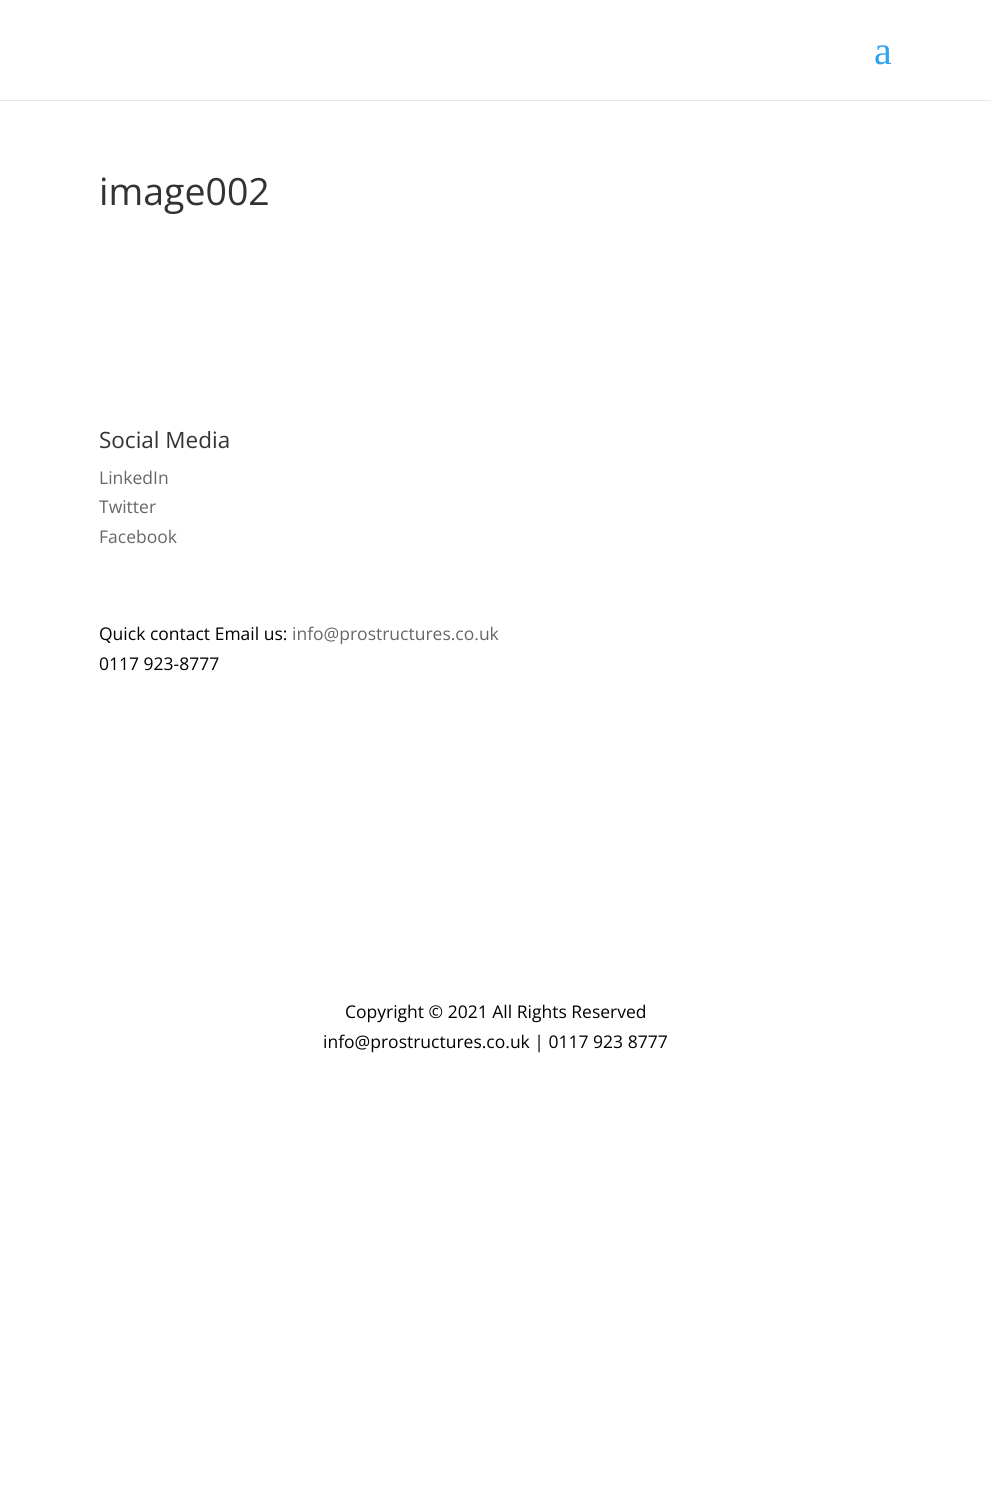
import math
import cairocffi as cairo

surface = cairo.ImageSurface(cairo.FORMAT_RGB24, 991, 1493)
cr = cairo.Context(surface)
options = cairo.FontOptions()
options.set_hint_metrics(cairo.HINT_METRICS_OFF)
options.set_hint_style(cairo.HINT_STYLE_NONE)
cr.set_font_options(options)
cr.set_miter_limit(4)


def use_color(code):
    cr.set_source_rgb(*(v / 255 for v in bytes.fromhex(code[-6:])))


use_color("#ffffff")
cr.paint()
use_color("#e6e6e6")
cr.rectangle(0, 100, 991, 1)
cr.fill()
cr.select_font_face("Liberation Serif")
cr.set_font_size(40)
use_color("#2ea3f2")
cr.move_to(874, 64)
cr.show_text("a")
cr.select_font_face("Open Sans")
cr.set_font_size(37.5)
use_color("#333333")
cr.move_to(99, 205)
cr.show_text("image002")
cr.set_font_size(22.5)
cr.move_to(99, 448)
cr.show_text("Social Media")
cr.set_font_size(17.5)
use_color("#666666")
cr.move_to(99, 484)
cr.show_text("LinkedIn")
cr.move_to(99, 513)
cr.show_text("Twitter")
cr.move_to(99, 543)
cr.show_text("Facebook")
use_color("#000000")
cr.move_to(99, 640)
cr.show_text("Quick contact Email us:")
use_color("#666666")
cr.move_to(292, 640)
cr.show_text("info@prostructures.co.uk")
use_color("#000000")
cr.move_to(99, 670)
cr.show_text("0117 923-8777")
cr.move_to(345, 1018)
cr.show_text("Copyright © 2021 All Rights Reserved")
cr.move_to(323, 1048)
cr.show_text("info@prostructures.co.uk | 0117 923 8777")
surface.write_to_png("result.png")
